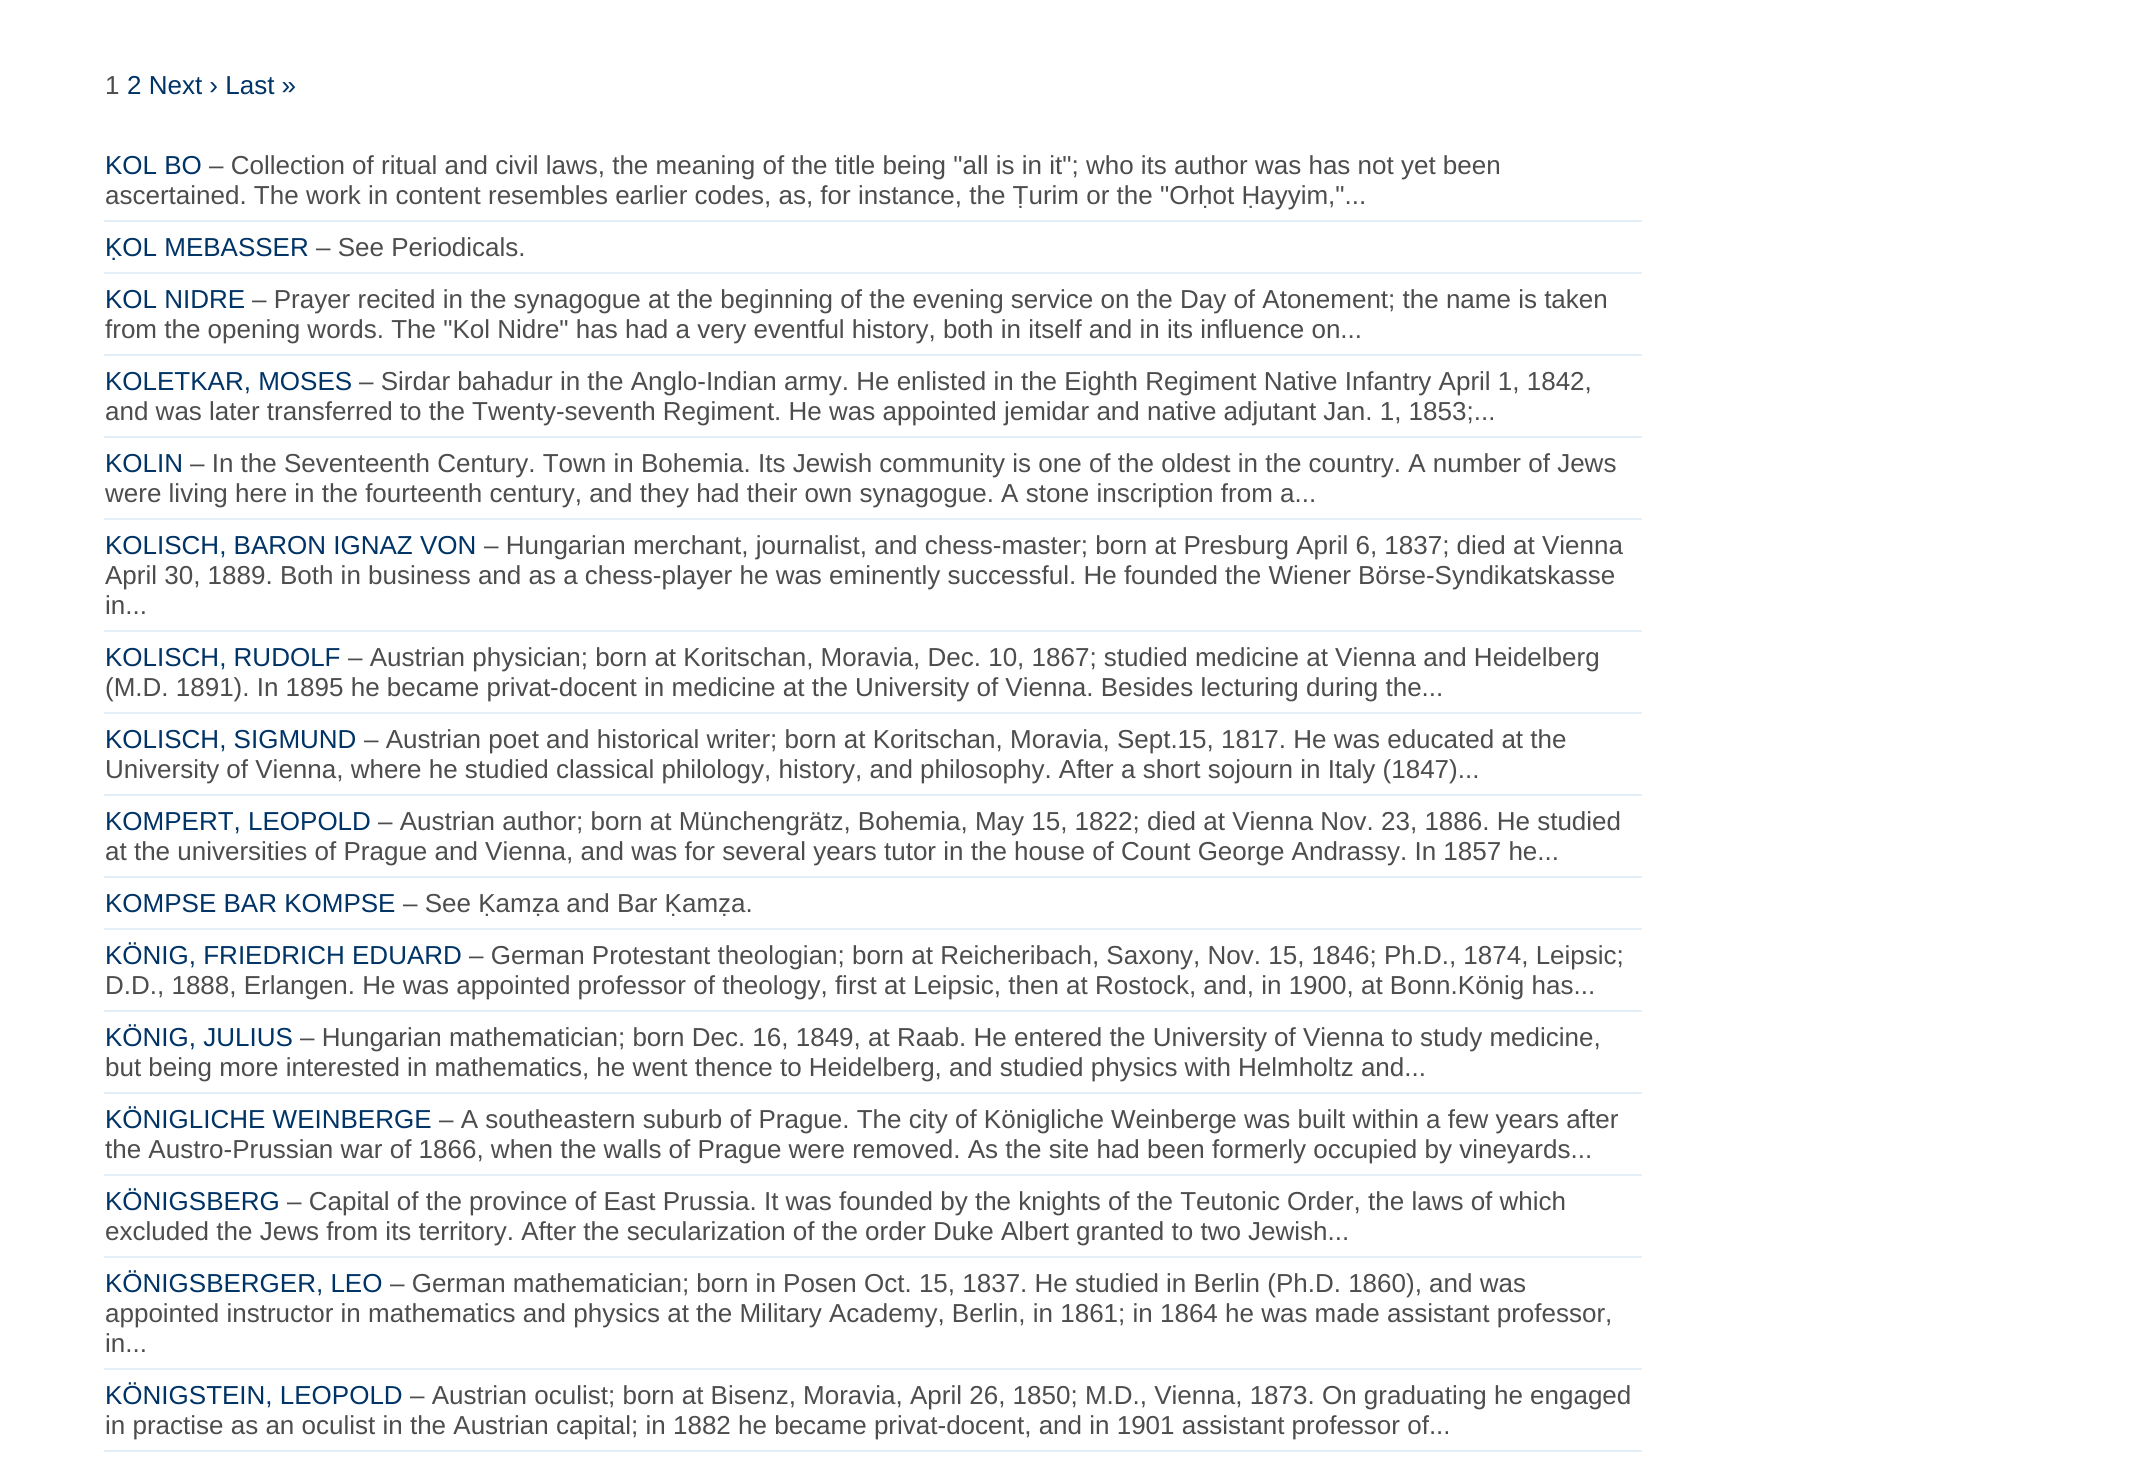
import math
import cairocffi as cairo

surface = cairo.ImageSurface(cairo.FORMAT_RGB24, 2129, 1464)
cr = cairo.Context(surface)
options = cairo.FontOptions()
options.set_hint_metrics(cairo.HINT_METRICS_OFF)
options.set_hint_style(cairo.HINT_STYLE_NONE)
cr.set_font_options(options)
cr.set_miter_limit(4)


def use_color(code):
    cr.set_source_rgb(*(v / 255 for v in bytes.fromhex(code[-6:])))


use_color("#ffffff")
cr.paint()
cr.select_font_face("Liberation Sans")
cr.set_font_size(26)
use_color("#4d4d4d")
cr.move_to(105, 94)
cr.show_text("1")
use_color("#003366")
cr.move_to(127, 94)
cr.show_text("2 Next › Last »")
use_color("#e5eff8")
cr.rectangle(104, 220, 1538, 2)
cr.fill()
use_color("#003366")
cr.move_to(105, 174)
cr.show_text("KOL BO")
use_color("#4d4d4d")
cr.move_to(209, 174)
cr.show_text("– Collection of ritual and civil laws, the meaning of the title being \"all is in it\"; who its author was has not yet been")
cr.move_to(105, 204)
cr.show_text("ascertained. The work in content resembles earlier codes, as, for instance, the Ṭurim or the \"Orḥot Ḥayyim,\"...")
use_color("#e5eff8")
cr.rectangle(104, 272, 1538, 2)
cr.fill()
use_color("#003366")
cr.move_to(105, 256)
cr.show_text("ḲOL MEBASSER")
use_color("#4d4d4d")
cr.move_to(316, 256)
cr.show_text("– See Periodicals.")
use_color("#e5eff8")
cr.rectangle(104, 354, 1538, 2)
cr.fill()
use_color("#003366")
cr.move_to(105, 308)
cr.show_text("KOL NIDRE")
use_color("#4d4d4d")
cr.move_to(252, 308)
cr.show_text("– Prayer recited in the synagogue at the beginning of the evening service on the Day of Atonement; the name is taken")
cr.move_to(105, 338)
cr.show_text("from the opening words. The \"Kol Nidre\" has had a very eventful history, both in itself and in its influence on...")
use_color("#e5eff8")
cr.rectangle(104, 436, 1538, 2)
cr.fill()
use_color("#003366")
cr.move_to(105, 390)
cr.show_text("KOLETKAR, MOSES")
use_color("#4d4d4d")
cr.move_to(359, 390)
cr.show_text("– Sirdar bahadur in the Anglo-Indian army. He enlisted in the Eighth Regiment Native Infantry April 1, 1842,")
cr.move_to(105, 420)
cr.show_text("and was later transferred to the Twenty-seventh Regiment. He was appointed jemidar and native adjutant Jan. 1, 1853;...")
use_color("#e5eff8")
cr.rectangle(104, 518, 1538, 2)
cr.fill()
use_color("#003366")
cr.move_to(105, 472)
cr.show_text("KOLIN")
use_color("#4d4d4d")
cr.move_to(190, 472)
cr.show_text("– In the Seventeenth Century. Town in Bohemia. Its Jewish community is one of the oldest in the country. A number of Jews")
cr.move_to(105, 502)
cr.show_text("were living here in the fourteenth century, and they had their own synagogue. A stone inscription from a...")
use_color("#e5eff8")
cr.rectangle(104, 630, 1538, 2)
cr.fill()
use_color("#003366")
cr.move_to(105, 554)
cr.show_text("KOLISCH, BARON IGNAZ VON")
use_color("#4d4d4d")
cr.move_to(484, 554)
cr.show_text("– Hungarian merchant, journalist, and chess-master; born at Presburg April 6, 1837; died at Vienna")
cr.move_to(105, 584)
cr.show_text("April 30, 1889. Both in business and as a chess-player he was eminently successful. He founded the Wiener Börse-Syndikatskasse")
cr.move_to(105, 614)
cr.show_text("in...")
use_color("#e5eff8")
cr.rectangle(104, 712, 1538, 2)
cr.fill()
use_color("#003366")
cr.move_to(105, 666)
cr.show_text("KOLISCH, RUDOLF")
use_color("#4d4d4d")
cr.move_to(348, 666)
cr.show_text("– Austrian physician; born at Koritschan, Moravia, Dec. 10, 1867; studied medicine at Vienna and Heidelberg")
cr.move_to(105, 696)
cr.show_text("(M.D. 1891). In 1895 he became privat-docent in medicine at the University of Vienna. Besides lecturing during the...")
use_color("#e5eff8")
cr.rectangle(104, 794, 1538, 2)
cr.fill()
use_color("#003366")
cr.move_to(105, 748)
cr.show_text("KOLISCH, SIGMUND")
use_color("#4d4d4d")
cr.move_to(364, 748)
cr.show_text("– Austrian poet and historical writer; born at Koritschan, Moravia, Sept.15, 1817. He was educated at the")
cr.move_to(105, 778)
cr.show_text("University of Vienna, where he studied classical philology, history, and philosophy. After a short sojourn in Italy (1847)...")
use_color("#e5eff8")
cr.rectangle(104, 876, 1538, 2)
cr.fill()
use_color("#003366")
cr.move_to(105, 830)
cr.show_text("KOMPERT, LEOPOLD")
use_color("#4d4d4d")
cr.move_to(378, 830)
cr.show_text("– Austrian author; born at Münchengrätz, Bohemia, May 15, 1822; died at Vienna Nov. 23, 1886. He studied")
cr.move_to(105, 860)
cr.show_text("at the universities of Prague and Vienna, and was for several years tutor in the house of Count George Andrassy. In 1857 he...")
use_color("#e5eff8")
cr.rectangle(104, 928, 1538, 2)
cr.fill()
use_color("#003366")
cr.move_to(105, 912)
cr.show_text("KOMPSE BAR KOMPSE")
use_color("#4d4d4d")
cr.move_to(403, 912)
cr.show_text("– See Ḳamẓa and Bar Ḳamẓa.")
use_color("#e5eff8")
cr.rectangle(104, 1010, 1538, 2)
cr.fill()
use_color("#003366")
cr.move_to(105, 964)
cr.show_text("KÖNIG, FRIEDRICH EDUARD")
use_color("#4d4d4d")
cr.move_to(469, 964)
cr.show_text("– German Protestant theologian; born at Reicheribach, Saxony, Nov. 15, 1846; Ph.D., 1874, Leipsic;")
cr.move_to(105, 994)
cr.show_text("D.D., 1888, Erlangen. He was appointed professor of theology, first at Leipsic, then at Rostock, and, in 1900, at Bonn.König has...")
use_color("#e5eff8")
cr.rectangle(104, 1092, 1538, 2)
cr.fill()
use_color("#003366")
cr.move_to(105, 1046)
cr.show_text("KÖNIG, JULIUS")
use_color("#4d4d4d")
cr.move_to(300, 1046)
cr.show_text("– Hungarian mathematician; born Dec. 16, 1849, at Raab. He entered the University of Vienna to study medicine,")
cr.move_to(105, 1076)
cr.show_text("but being more interested in mathematics, he went thence to Heidelberg, and studied physics with Helmholtz and...")
use_color("#e5eff8")
cr.rectangle(104, 1174, 1538, 2)
cr.fill()
use_color("#003366")
cr.move_to(105, 1128)
cr.show_text("KÖNIGLICHE WEINBERGE")
use_color("#4d4d4d")
cr.move_to(439, 1128)
cr.show_text("– A southeastern suburb of Prague. The city of Königliche Weinberge was built within a few years after")
cr.move_to(105, 1158)
cr.show_text("the Austro-Prussian war of 1866, when the walls of Prague were removed. As the site had been formerly occupied by vineyards...")
use_color("#e5eff8")
cr.rectangle(104, 1256, 1538, 2)
cr.fill()
use_color("#003366")
cr.move_to(105, 1210)
cr.show_text("KÖNIGSBERG")
use_color("#4d4d4d")
cr.move_to(287, 1210)
cr.show_text("– Capital of the province of East Prussia. It was founded by the knights of the Teutonic Order, the laws of which")
cr.move_to(105, 1240)
cr.show_text("excluded the Jews from its territory. After the secularization of the order Duke Albert granted to two Jewish...")
use_color("#e5eff8")
cr.rectangle(104, 1368, 1538, 2)
cr.fill()
use_color("#003366")
cr.move_to(105, 1292)
cr.show_text("KÖNIGSBERGER, LEO")
use_color("#4d4d4d")
cr.move_to(390, 1292)
cr.show_text("– German mathematician; born in Posen Oct. 15, 1837. He studied in Berlin (Ph.D. 1860), and was")
cr.move_to(105, 1322)
cr.show_text("appointed instructor in mathematics and physics at the Military Academy, Berlin, in 1861; in 1864 he was made assistant professor,")
cr.move_to(105, 1352)
cr.show_text("in...")
use_color("#e5eff8")
cr.rectangle(104, 1450, 1538, 2)
cr.fill()
use_color("#003366")
cr.move_to(105, 1404)
cr.show_text("KÖNIGSTEIN, LEOPOLD")
use_color("#4d4d4d")
cr.move_to(410, 1404)
cr.show_text("– Austrian oculist; born at Bisenz, Moravia, April 26, 1850; M.D., Vienna, 1873. On graduating he engaged")
cr.move_to(105, 1434)
cr.show_text("in practise as an oculist in the Austrian capital; in 1882 he became privat-docent, and in 1901 assistant professor of...")
surface.write_to_png("result.png")
